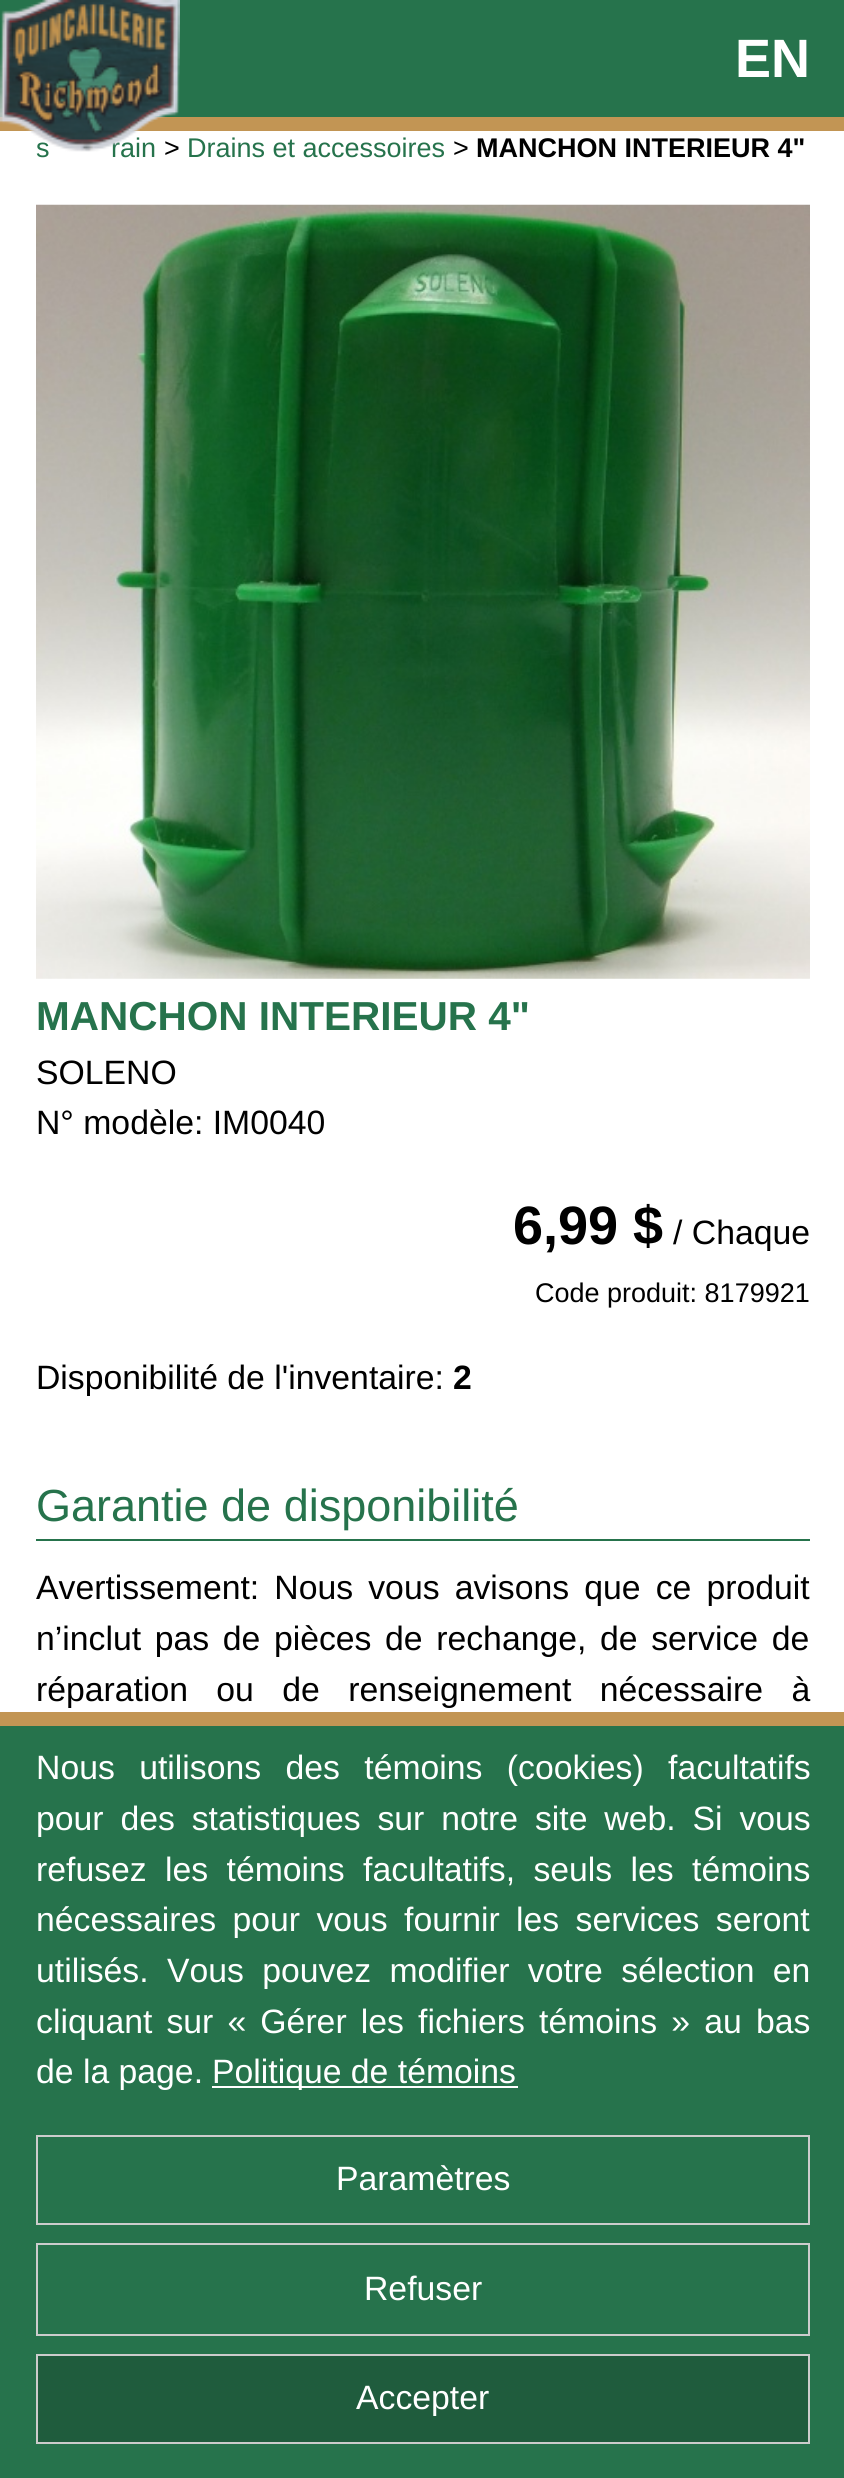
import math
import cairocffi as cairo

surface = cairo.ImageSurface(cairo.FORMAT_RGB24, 844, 2478)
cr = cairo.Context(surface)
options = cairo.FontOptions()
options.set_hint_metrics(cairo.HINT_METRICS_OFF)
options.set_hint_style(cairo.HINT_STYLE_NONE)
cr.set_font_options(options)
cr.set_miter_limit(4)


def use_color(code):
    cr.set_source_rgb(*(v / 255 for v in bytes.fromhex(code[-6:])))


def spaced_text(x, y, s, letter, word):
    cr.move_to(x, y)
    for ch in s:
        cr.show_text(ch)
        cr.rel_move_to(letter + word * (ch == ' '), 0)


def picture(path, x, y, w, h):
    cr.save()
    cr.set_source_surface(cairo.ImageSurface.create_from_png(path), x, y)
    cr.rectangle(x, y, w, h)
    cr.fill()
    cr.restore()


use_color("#ffffff")
cr.paint()
use_color("#26734c")
cr.rectangle(0, 0, 844, 117)
cr.fill()
use_color("#c29554")
cr.rectangle(0, 117, 844, 14)
cr.fill()
cr.select_font_face("Liberation Sans")
cr.set_font_size(27)
use_color("#26734c")
cr.move_to(36, 157)
cr.show_text("s")
cr.move_to(111, 157)
cr.show_text("rain")
use_color("#000000")
cr.move_to(164, 157)
cr.show_text(">")
picture("img1.png", 0, 0, 180, 152)
cr.select_font_face("Liberation Sans", cairo.FONT_SLANT_NORMAL, cairo.FONT_WEIGHT_BOLD)
cr.set_font_size(54)
use_color("#ffffff")
cr.move_to(735, 77)
cr.show_text("EN")
cr.select_font_face("Liberation Sans")
cr.set_font_size(27)
use_color("#26734c")
cr.move_to(187, 157)
cr.show_text("Drains et accessoires")
use_color("#000000")
cr.move_to(453, 157)
cr.show_text(">")
cr.select_font_face("Liberation Sans", cairo.FONT_SLANT_NORMAL, cairo.FONT_WEIGHT_BOLD)
cr.move_to(476, 157)
cr.show_text("MANCHON INTERIEUR 4\"")
picture("img2.png", 36, 204, 774, 775)
cr.set_font_size(40.5)
use_color("#26734c")
cr.move_to(36, 1030)
cr.show_text("MANCHON INTERIEUR 4\"")
cr.select_font_face("Liberation Sans")
cr.set_font_size(33.75)
use_color("#000000")
cr.move_to(36, 1084)
cr.show_text("SOLENO")
cr.move_to(36, 1134)
cr.show_text("N° modèle: IM0040")
cr.select_font_face("Liberation Sans", cairo.FONT_SLANT_NORMAL, cairo.FONT_WEIGHT_BOLD)
cr.set_font_size(54)
cr.move_to(513, 1244)
cr.show_text("6,99 $")
cr.select_font_face("Liberation Sans")
cr.set_font_size(33.75)
cr.move_to(673, 1244)
cr.show_text("/ Chaque")
cr.set_font_size(27)
cr.move_to(535, 1302)
cr.show_text("Code produit: 8179921")
cr.set_font_size(33.75)
cr.move_to(36, 1389)
cr.show_text("Disponibilité de l'inventaire:")
cr.select_font_face("Liberation Sans", cairo.FONT_SLANT_NORMAL, cairo.FONT_WEIGHT_BOLD)
cr.move_to(453, 1389)
cr.show_text("2")
use_color("#26734c")
cr.rectangle(36, 1539, 774, 2)
cr.fill()
cr.select_font_face("Liberation Sans")
cr.set_font_size(45)
cr.move_to(36, 1521)
cr.show_text("Garantie de disponibilité")
cr.set_font_size(33.75)
use_color("#000000")
spaced_text(36, 1599, "Avertissement: Nous vous avisons que ce produit", 0, 5.75)
spaced_text(36, 1650, "n’inclut pas de pièces de rechange, de service de", 0, 4.25)
spaced_text(36, 1701, "réparation ou de renseignement nécessaire à", 0, 19)
use_color("#26734c")
cr.rectangle(0, 1726, 844, 752)
cr.fill()
use_color("#c29554")
cr.rectangle(0, 1712, 844, 14)
cr.fill()
use_color("#ffffff")
spaced_text(36, 1779, "Nous utilisons des témoins (cookies) facultatifs", 0, 15)
spaced_text(36, 1830, "pour des statistiques sur notre site web. Si vous", 0, 7.5)
spaced_text(36, 1881, "refusez les témoins facultatifs, seuls les témoins", 0, 9)
spaced_text(36, 1931, "nécessaires pour vous fournir les services seront", 0, 7)
spaced_text(36, 1982, "utilisés. Vous pouvez modifier votre sélection en", 0, 9)
spaced_text(36, 2033, "cliquant sur « Gérer les fichiers témoins » au bas", 0, 4.75)
cr.move_to(36, 2083)
cr.show_text("de la page.")
cr.rectangle(212, 2086, 306, 2)
cr.fill()
cr.move_to(212, 2083)
cr.show_text("Politique de témoins")
cr.rectangle(37, 2136, 772, 88)
use_color("#cccccc")
cr.stroke()
use_color("#ffffff")
cr.move_to(336, 2190)
cr.show_text("Paramètres")
cr.rectangle(37, 2244, 772, 91)
use_color("#cccccc")
cr.stroke()
use_color("#ffffff")
cr.move_to(364, 2300)
cr.show_text("Refuser")
use_color("#1f5c3d")
cr.rectangle(37, 2355, 772, 88)
cr.fill_preserve()
use_color("#cccccc")
cr.stroke()
use_color("#ffffff")
cr.move_to(356, 2409)
cr.show_text("Accepter")
surface.write_to_png("result.png")
